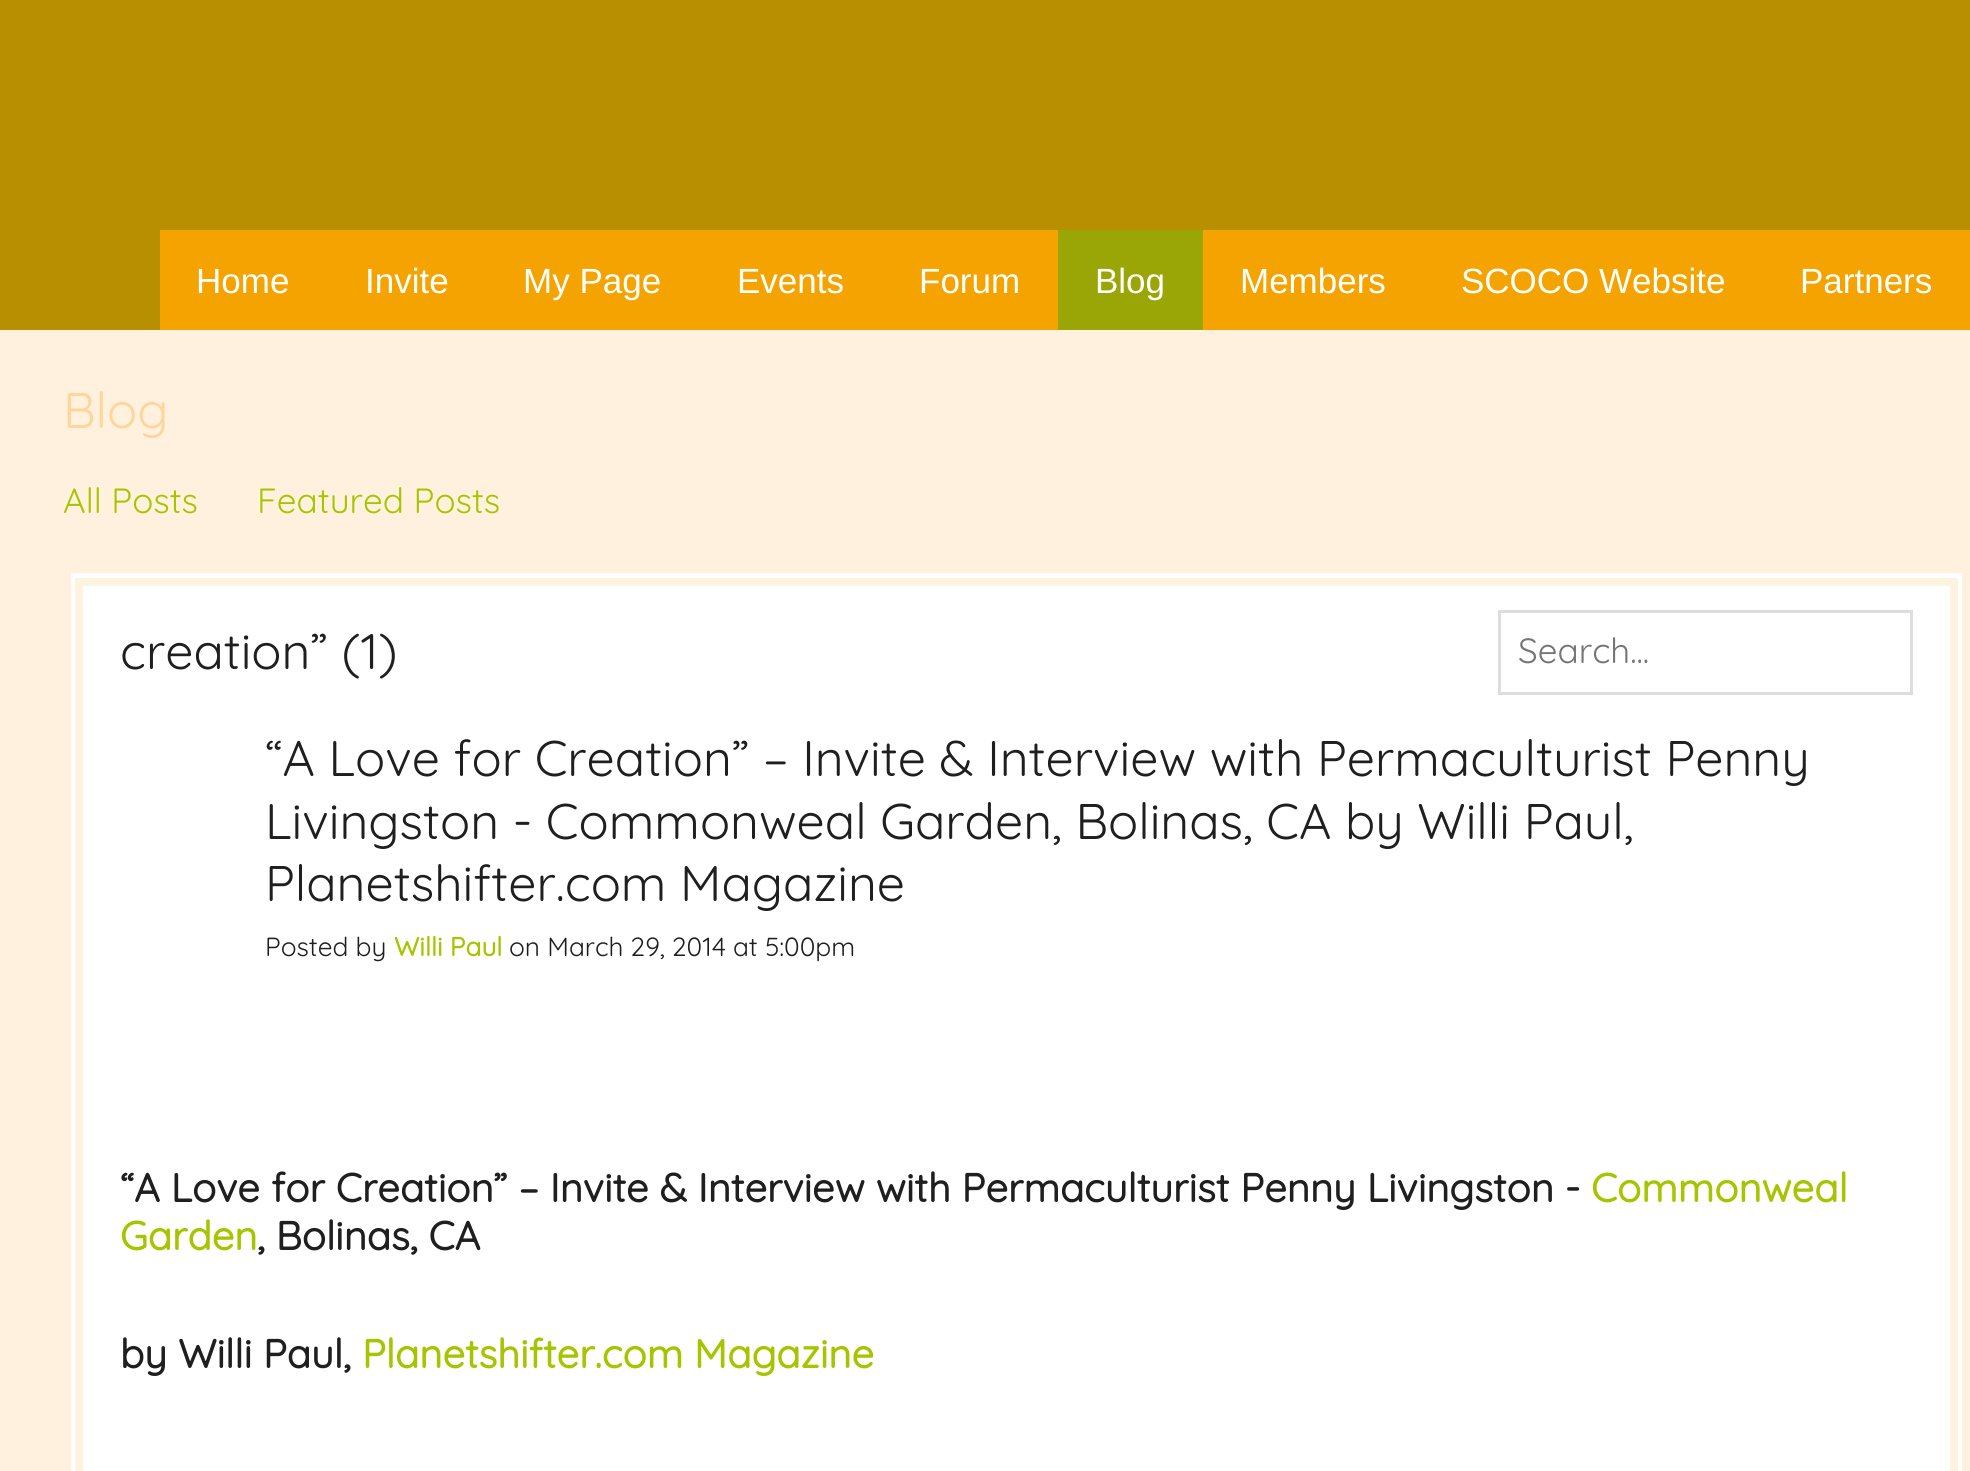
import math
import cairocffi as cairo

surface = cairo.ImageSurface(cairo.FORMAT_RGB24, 1970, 1471)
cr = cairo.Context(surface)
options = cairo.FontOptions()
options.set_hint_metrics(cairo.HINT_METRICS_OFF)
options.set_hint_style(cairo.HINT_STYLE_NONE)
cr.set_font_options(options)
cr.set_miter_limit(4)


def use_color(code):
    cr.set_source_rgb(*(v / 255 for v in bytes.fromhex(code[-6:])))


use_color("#fff1de")
cr.paint()
use_color("#b88f00")
cr.rectangle(0, 0, 1970, 330)
cr.fill()
use_color("#f5a300")
cr.rectangle(160, 230, 898, 100)
cr.fill()
cr.select_font_face("Liberation Sans")
cr.set_font_size(35)
use_color("#ffffff")
cr.move_to(196, 293)
cr.show_text("Home")
cr.move_to(365, 293)
cr.show_text("Invite")
cr.move_to(523, 293)
cr.show_text("My Page")
cr.move_to(737, 293)
cr.show_text("Events")
cr.move_to(919, 293)
cr.show_text("Forum")
use_color("#99a606")
cr.rectangle(1058, 230, 145, 100)
cr.fill()
use_color("#ffffff")
cr.move_to(1095, 293)
cr.show_text("Blog")
use_color("#f5a300")
cr.rectangle(1203, 230, 767, 100)
cr.fill()
use_color("#ffffff")
cr.move_to(1240, 293)
cr.show_text("Members")
cr.move_to(1461, 293)
cr.show_text("SCOCO Website")
cr.move_to(1800, 293)
cr.show_text("Partners")
cr.select_font_face("Quicksand Light")
cr.set_font_size(50)
use_color("#ffd59c")
cr.move_to(63, 428)
cr.show_text("Blog")
cr.set_font_size(35)
use_color("#a5c500")
cr.move_to(63, 513)
cr.show_text("All Posts")
cr.move_to(257, 513)
cr.show_text("Featured Posts")
use_color("#ffffff")
cr.rectangle(71, 573, 1891, 898)
cr.fill()
cr.rectangle(79, 582, 1875, 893)
use_color("#fef3de")
cr.set_line_width(8)
cr.stroke()
cr.set_font_size(50)
use_color("#1f1f1f")
cr.move_to(120, 669)
cr.show_text("creation” (1)")
cr.rectangle(1499.5, 611.5, 412, 82)
use_color("#dddddd")
cr.set_line_width(3)
cr.stroke()
cr.set_font_size(35)
use_color("#757575")
cr.move_to(1518, 663)
cr.show_text("Search...")
cr.set_font_size(50)
use_color("#1f1f1f")
cr.move_to(265, 776)
cr.show_text("“A Love for Creation” – Invite & Interview with Permaculturist Penny")
cr.move_to(265, 839)
cr.show_text("Livingston - Commonweal Garden, Bolinas, CA by Willi Paul,")
cr.move_to(265, 901)
cr.show_text("Planetshifter.com Magazine")
cr.set_font_size(26.25)
cr.move_to(265, 956)
cr.show_text("Posted by")
cr.select_font_face("Quicksand", cairo.FONT_SLANT_NORMAL, cairo.FONT_WEIGHT_BOLD)
use_color("#a5c500")
cr.move_to(394, 956)
cr.show_text("Willi Paul")
cr.select_font_face("Quicksand Light")
use_color("#1f1f1f")
cr.move_to(509, 956)
cr.show_text("on March 29, 2014 at 5:00pm")
cr.select_font_face("Quicksand", cairo.FONT_SLANT_NORMAL, cairo.FONT_WEIGHT_BOLD)
cr.set_font_size(40)
cr.move_to(120, 1202)
cr.show_text("“A Love for Creation” – Invite & Interview with Permaculturist Penny Livingston -")
use_color("#a5c500")
cr.move_to(1591, 1202)
cr.show_text("Commonweal")
cr.move_to(120, 1250)
cr.show_text("Garden")
use_color("#1f1f1f")
cr.move_to(257, 1250)
cr.show_text(", Bolinas, CA")
cr.move_to(120, 1368)
cr.show_text("by Willi Paul,")
use_color("#a5c500")
cr.move_to(362, 1368)
cr.show_text("Planetshifter.com Magazine")
surface.write_to_png("result.png")
